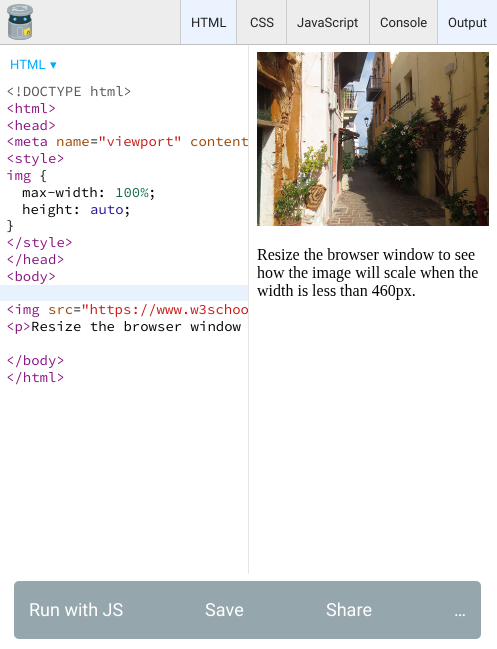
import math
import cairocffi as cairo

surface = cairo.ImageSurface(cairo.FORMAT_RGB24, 497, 649)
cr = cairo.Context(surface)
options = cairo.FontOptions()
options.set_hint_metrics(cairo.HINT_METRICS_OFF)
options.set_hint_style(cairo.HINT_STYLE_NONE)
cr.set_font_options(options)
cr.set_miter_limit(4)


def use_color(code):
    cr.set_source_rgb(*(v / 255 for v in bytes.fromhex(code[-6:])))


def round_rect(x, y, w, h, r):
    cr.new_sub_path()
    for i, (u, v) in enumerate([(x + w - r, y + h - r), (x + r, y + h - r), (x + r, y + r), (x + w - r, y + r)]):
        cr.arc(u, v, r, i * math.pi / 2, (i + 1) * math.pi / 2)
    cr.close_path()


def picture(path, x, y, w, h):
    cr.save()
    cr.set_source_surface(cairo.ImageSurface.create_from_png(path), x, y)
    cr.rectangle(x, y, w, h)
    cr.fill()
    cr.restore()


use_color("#ffffff")
cr.paint()
use_color("#ededed")
cr.rectangle(0, 0, 437, 44)
cr.fill()
picture("img1.png", 7, 4, 26, 36)
use_color("#e6e6e6")
cr.rectangle(248, 44, 1, 530)
cr.fill()
use_color("#bfbfbf")
cr.rectangle(0, 44, 497, 1)
cr.fill()
use_color("#ebf3ff")
cr.rectangle(181, 0, 55, 44)
cr.fill()
use_color("#cccccc")
cr.rectangle(180, 0, 1, 44)
cr.fill()
cr.select_font_face("Roboto")
cr.set_font_size(13)
use_color("#232323")
cr.move_to(191, 27)
cr.show_text("HTML")
use_color("#cccccc")
cr.rectangle(236, 0, 1, 44)
cr.fill()
use_color("#232323")
cr.move_to(250, 27)
cr.show_text("CSS")
use_color("#cccccc")
cr.rectangle(286, 0, 1, 44)
cr.fill()
use_color("#232323")
cr.move_to(297, 27)
cr.show_text("JavaScript")
use_color("#cccccc")
cr.rectangle(369, 0, 1, 44)
cr.fill()
use_color("#232323")
cr.move_to(380, 27)
cr.show_text("Console")
use_color("#ebf3ff")
cr.rectangle(438, 0, 59, 44)
cr.fill()
use_color("#cccccc")
cr.rectangle(437, 0, 1, 44)
cr.fill()
use_color("#232323")
cr.move_to(448, 27)
cr.show_text("Output")
use_color("#00aaff")
cr.move_to(10, 69)
cr.show_text("HTML")
cr.select_font_face("DejaVu Sans")
cr.move_to(50, 69)
cr.show_text("▾")
cr.select_font_face("Source Code Pro")
cr.set_font_size(14)
use_color("#555555")
cr.move_to(6, 96)
cr.show_text("<!DOCTYPE html>")
use_color("#881280")
cr.move_to(6, 113)
cr.show_text("<html>")
cr.move_to(6, 130)
cr.show_text("<head>")
cr.move_to(6, 146)
cr.show_text("<meta")
use_color("#994500")
cr.move_to(56, 146)
cr.show_text("name")
use_color("#000000")
cr.move_to(90, 146)
cr.show_text("=")
use_color("#c41a16")
cr.move_to(98, 146)
cr.show_text("\"viewport\"")
use_color("#994500")
cr.move_to(190, 146)
cr.show_text("content")
use_color("#881280")
cr.move_to(6, 163)
cr.show_text("<style>")
cr.move_to(6, 180)
cr.show_text("img")
use_color("#000000")
cr.move_to(39, 180)
cr.show_text("{")
cr.move_to(22, 197)
cr.show_text("max-width:")
use_color("#116644")
cr.move_to(115, 197)
cr.show_text("100%")
use_color("#000000")
cr.move_to(148, 197)
cr.show_text(";")
cr.move_to(22, 214)
cr.show_text("height:")
use_color("#221199")
cr.move_to(90, 214)
cr.show_text("auto")
use_color("#000000")
cr.move_to(123, 214)
cr.show_text(";")
cr.move_to(6, 230)
cr.show_text("}")
use_color("#881280")
cr.move_to(6, 247)
cr.show_text("</style>")
cr.move_to(6, 264)
cr.show_text("</head>")
cr.move_to(6, 281)
cr.show_text("<body>")
use_color("#e8f2ff")
cr.rectangle(0, 285, 248, 16)
cr.fill()
use_color("#881280")
cr.move_to(6, 314)
cr.show_text("<img")
use_color("#994500")
cr.move_to(48, 314)
cr.show_text("src")
use_color("#000000")
cr.move_to(73, 314)
cr.show_text("=")
cr.save()
cr.rectangle(0, 44, 248, 530)
cr.clip()
use_color("#c41a16")
cr.move_to(81, 314)
cr.show_text("\"https://www.w3schoo")
cr.restore()
use_color("#881280")
cr.move_to(6, 331)
cr.show_text("<p>")
use_color("#000000")
cr.move_to(31, 331)
cr.show_text("Resize the browser window")
use_color("#881280")
cr.move_to(6, 365)
cr.show_text("</body>")
cr.move_to(6, 382)
cr.show_text("</html>")
picture("img2.png", 257, 52, 232, 248)
use_color("#95a6ad")
round_rect(14, 581, 467, 58, 5)
cr.fill()
cr.select_font_face("Roboto")
cr.set_font_size(18)
use_color("#ffffff")
cr.move_to(29, 616)
cr.show_text("Run with JS")
cr.move_to(205, 616)
cr.show_text("Save")
cr.move_to(326, 616)
cr.show_text("Share")
cr.move_to(454, 616)
cr.show_text("…")
surface.write_to_png("result.png")
